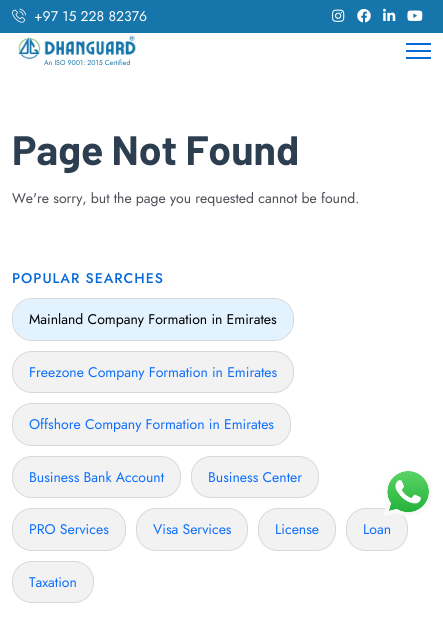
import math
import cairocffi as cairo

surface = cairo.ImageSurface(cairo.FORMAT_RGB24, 443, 642)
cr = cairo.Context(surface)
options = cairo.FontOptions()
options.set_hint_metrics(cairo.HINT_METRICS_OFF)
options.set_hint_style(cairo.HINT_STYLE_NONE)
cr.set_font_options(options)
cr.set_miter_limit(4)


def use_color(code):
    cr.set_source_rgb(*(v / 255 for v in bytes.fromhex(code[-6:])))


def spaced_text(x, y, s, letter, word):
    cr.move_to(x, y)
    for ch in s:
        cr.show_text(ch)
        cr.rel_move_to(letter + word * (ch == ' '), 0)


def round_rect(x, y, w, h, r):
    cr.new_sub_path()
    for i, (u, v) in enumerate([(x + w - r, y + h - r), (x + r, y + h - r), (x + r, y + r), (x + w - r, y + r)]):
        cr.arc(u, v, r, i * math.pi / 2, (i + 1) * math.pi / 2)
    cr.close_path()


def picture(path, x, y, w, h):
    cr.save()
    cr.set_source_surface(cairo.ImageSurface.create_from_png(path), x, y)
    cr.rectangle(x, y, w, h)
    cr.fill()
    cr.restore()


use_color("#ffffff")
cr.paint()
use_color("#1675aa")
cr.rectangle(0, 0, 443, 33)
cr.fill()
picture("img1.png", 12, 8, 14, 15)
cr.select_font_face("Jost")
cr.set_font_size(14)
use_color("#ffffff")
cr.move_to(34, 21)
cr.show_text("+97 15 228 82376")
picture("img2.png", 332, 9, 13, 13)
picture("img3.png", 357, 9, 14, 14)
picture("img4.png", 383, 8, 13, 13)
picture("img5.png", 407, 10, 16, 11)
use_color("#086ad8")
cr.rectangle(406, 43, 25, 2)
cr.fill()
cr.rectangle(406, 50, 25, 2)
cr.fill()
cr.rectangle(406, 57, 25, 2)
cr.fill()
picture("img6.png", 18, 35, 118, 24)
cr.set_font_size(7)
use_color("#1575a9")
cr.move_to(44, 65)
cr.show_text("An ISO 9001: 2015 Certified")
cr.select_font_face("Barlow", cairo.FONT_SLANT_NORMAL, cairo.FONT_WEIGHT_BOLD)
cr.set_font_size(41)
use_color("#2c3e4f")
cr.move_to(12, 165)
cr.show_text("Page Not Found")
cr.select_font_face("Jost")
cr.set_font_size(14)
use_color("#4c4d56")
cr.move_to(12, 203)
cr.show_text("We're sorry, but the page you requested cannot be found.")
cr.select_font_face("Jost Medium")
use_color("#086ad8")
spaced_text(12, 283, "POPULAR SEARCHES", 1, 0)
use_color("#f2f2f2")
round_rect(12.5, 298.5, 281, 42, 19.5)
cr.fill_preserve()
use_color("#d8d8d8")
cr.set_line_width(1)
cr.stroke()
use_color("#e3f2ff")
round_rect(13, 299, 280, 41, 20)
cr.fill()
cr.select_font_face("Jost")
use_color("#000000")
cr.move_to(29, 324)
cr.show_text("Mainland Company Formation in Emirates")
use_color("#f2f2f2")
round_rect(12.5, 351.5, 281, 41, 19.5)
cr.fill_preserve()
use_color("#d8d8d8")
cr.stroke()
use_color("#0d6efd")
cr.move_to(29, 377)
cr.show_text("Freezone Company Formation in Emirates")
use_color("#f2f2f2")
round_rect(12.5, 403.5, 278, 42, 19.5)
cr.fill_preserve()
use_color("#d8d8d8")
cr.stroke()
use_color("#0d6efd")
cr.move_to(29, 429)
cr.show_text("Offshore Company Formation in Emirates")
use_color("#f2f2f2")
round_rect(12.5, 456.5, 168, 41, 19.5)
cr.fill_preserve()
use_color("#d8d8d8")
cr.stroke()
use_color("#0d6efd")
cr.move_to(29, 482)
cr.show_text("Business Bank Account")
use_color("#f2f2f2")
round_rect(191.5, 456.5, 127, 41, 19.5)
cr.fill_preserve()
use_color("#d8d8d8")
cr.stroke()
use_color("#0d6efd")
cr.move_to(208, 482)
cr.show_text("Business Center")
use_color("#f2f2f2")
round_rect(12.5, 508.5, 113, 42, 19.5)
cr.fill_preserve()
use_color("#d8d8d8")
cr.stroke()
use_color("#0d6efd")
cr.move_to(29, 534)
cr.show_text("PRO Services")
use_color("#f2f2f2")
round_rect(136.5, 508.5, 111, 42, 19.5)
cr.fill_preserve()
use_color("#d8d8d8")
cr.stroke()
use_color("#0d6efd")
cr.move_to(153, 534)
cr.show_text("Visa Services")
use_color("#f2f2f2")
round_rect(258.5, 508.5, 77, 42, 19.5)
cr.fill_preserve()
use_color("#d8d8d8")
cr.stroke()
use_color("#0d6efd")
cr.move_to(275, 534)
cr.show_text("License")
use_color("#f2f2f2")
round_rect(346.5, 508.5, 61, 42, 19.5)
cr.fill_preserve()
use_color("#d8d8d8")
cr.stroke()
use_color("#0d6efd")
cr.move_to(363, 534)
cr.show_text("Loan")
use_color("#f2f2f2")
round_rect(12.5, 561.5, 81, 41, 19.5)
cr.fill_preserve()
use_color("#d8d8d8")
cr.stroke()
use_color("#0d6efd")
cr.move_to(29, 587)
cr.show_text("Taxation")
picture("img7.png", 383, 471, 49, 45)
surface.write_to_png("result.png")
